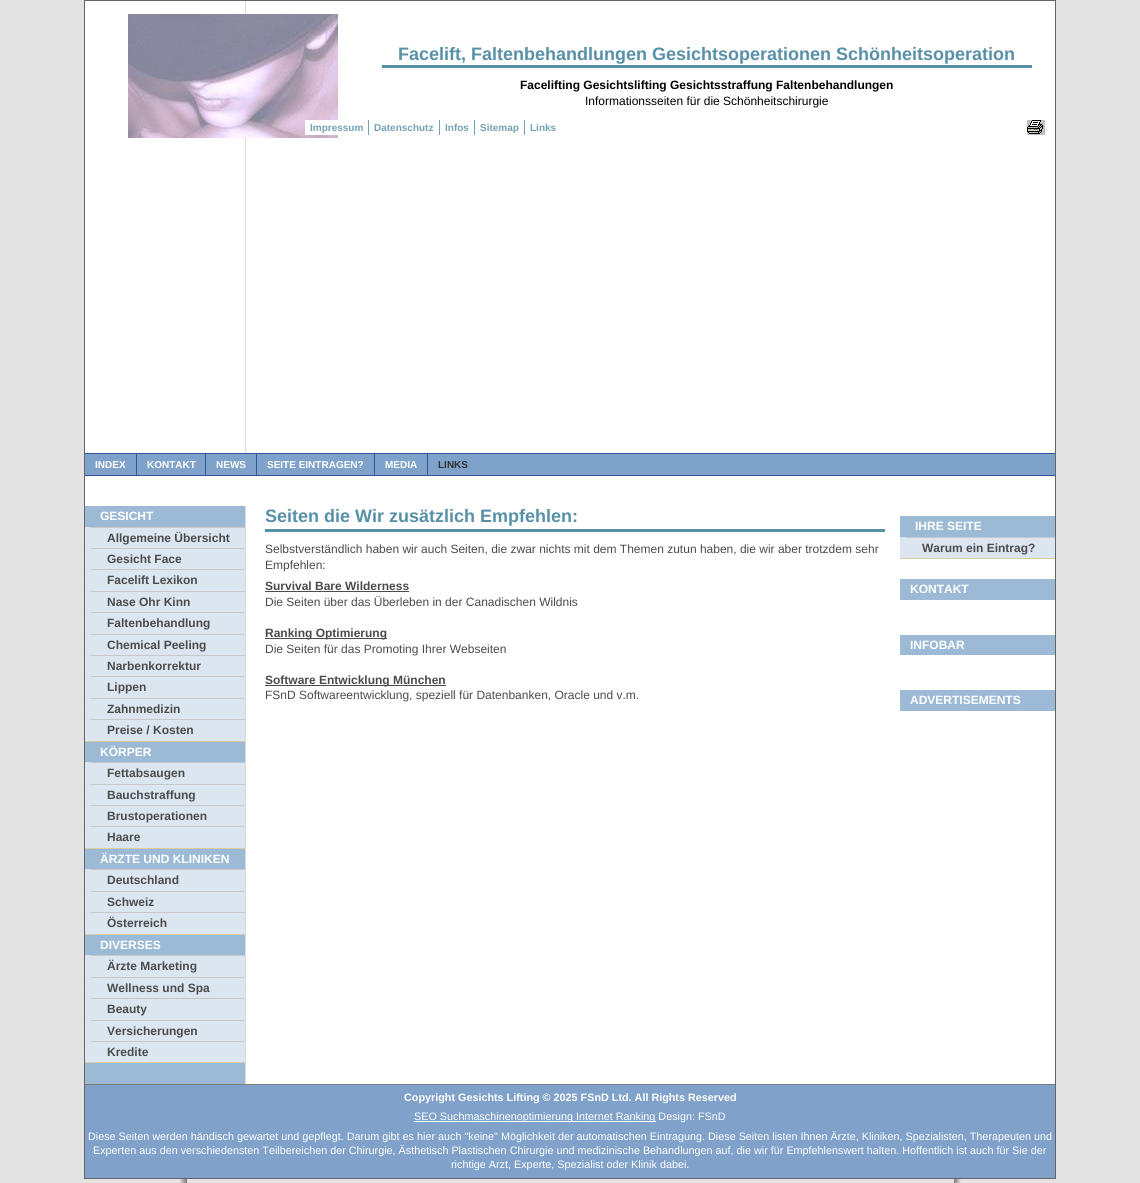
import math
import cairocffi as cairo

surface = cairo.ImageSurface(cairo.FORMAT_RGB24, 1140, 1183)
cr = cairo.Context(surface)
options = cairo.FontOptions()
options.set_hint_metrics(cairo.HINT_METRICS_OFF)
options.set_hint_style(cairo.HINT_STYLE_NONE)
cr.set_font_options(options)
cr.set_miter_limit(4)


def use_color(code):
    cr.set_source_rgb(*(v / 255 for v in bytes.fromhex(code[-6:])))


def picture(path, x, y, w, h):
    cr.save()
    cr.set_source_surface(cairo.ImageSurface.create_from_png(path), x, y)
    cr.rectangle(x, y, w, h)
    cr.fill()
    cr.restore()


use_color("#ffffff")
cr.paint()
picture("img1.png", 0, 0, 1140, 1183)
use_color("#ffffff")
cr.rectangle(85, 1, 970, 1083)
cr.fill()
use_color("#d9dbdc")
cr.rectangle(245, 0, 1, 1084)
cr.fill()
cr.rectangle(84.5, 0.5, 971, 1178)
use_color("#646464")
cr.set_line_width(1)
cr.stroke()
picture("img2.png", 128, 14, 210, 124)
use_color("#5890a8")
cr.rectangle(382, 65, 650, 3)
cr.fill()
cr.select_font_face("Liberation Sans", cairo.FONT_SLANT_NORMAL, cairo.FONT_WEIGHT_BOLD)
cr.set_font_size(18)
cr.move_to(398, 60)
cr.show_text("Facelift, Faltenbehandlungen Gesichtsoperationen Schönheitsoperation")
cr.set_font_size(12)
use_color("#000000")
cr.move_to(520, 89)
cr.show_text("Facelifting Gesichtslifting Gesichtsstraffung Faltenbehandlungen")
cr.select_font_face("Liberation Sans")
cr.move_to(585, 105)
cr.show_text("Informationsseiten für die Schönheitschirurgie")
use_color("#ffffff")
cr.rectangle(305, 120, 33, 15)
cr.fill()
use_color("#73a2b6")
cr.rectangle(368, 120, 1, 15)
cr.fill()
cr.select_font_face("Liberation Sans", cairo.FONT_SLANT_NORMAL, cairo.FONT_WEIGHT_BOLD)
cr.set_font_size(10)
cr.move_to(310, 131)
cr.show_text("Impressum")
cr.rectangle(439, 120, 1, 15)
cr.fill()
cr.move_to(374, 131)
cr.show_text("Datenschutz")
cr.rectangle(474, 120, 1, 15)
cr.fill()
cr.move_to(445, 131)
cr.show_text("Infos")
cr.rectangle(524, 120, 1, 15)
cr.fill()
cr.move_to(480, 131)
cr.show_text("Sitemap")
cr.move_to(530, 131)
cr.show_text("Links")
picture("img3.png", 1027, 120, 18, 15)
use_color("#7fa2ca")
cr.rectangle(85, 454, 970, 21)
cr.fill()
use_color("#365397")
cr.rectangle(85, 453, 970, 1)
cr.fill()
cr.rectangle(85, 475, 970, 1)
cr.fill()
cr.rectangle(136, 454, 1, 21)
cr.fill()
use_color("#ffffff")
cr.move_to(95, 468)
cr.show_text("INDEX")
use_color("#365397")
cr.rectangle(205, 454, 1, 21)
cr.fill()
use_color("#ffffff")
cr.move_to(147, 468)
cr.show_text("KONTAKT")
use_color("#365397")
cr.rectangle(256, 454, 1, 21)
cr.fill()
use_color("#ffffff")
cr.move_to(216, 468)
cr.show_text("NEWS")
use_color("#365397")
cr.rectangle(374, 454, 1, 21)
cr.fill()
use_color("#ffffff")
cr.move_to(267, 468)
cr.show_text("SEITE EINTRAGEN?")
use_color("#365397")
cr.rectangle(427, 454, 1, 21)
cr.fill()
use_color("#ffffff")
cr.move_to(385, 468)
cr.show_text("MEDIA")
use_color("#323232")
cr.move_to(438, 468)
cr.show_text("LINKS")
use_color("#ffffff")
cr.rectangle(245, 476, 1, 30)
cr.fill()
use_color("#9cbad6")
cr.rectangle(85, 506, 160, 21)
cr.fill()
cr.set_font_size(12)
use_color("#ffffff")
cr.move_to(100, 520)
cr.show_text("GESICHT")
use_color("#dbe6f1")
cr.rectangle(85, 527, 160, 214)
cr.fill()
use_color("#d8ce9f")
cr.rectangle(85, 741, 160, 1)
cr.fill()
use_color("#c8c8c8")
cr.new_path()
cr.move_to(85, 527)
cr.line_to(245, 527)
cr.line_to(245, 528)
cr.line_to(92, 528)
cr.close_path()
cr.fill()
use_color("#dbe6f1")
cr.new_path()
cr.move_to(85, 548)
cr.line_to(85, 527)
cr.line_to(92, 528)
cr.line_to(92, 548)
cr.close_path()
cr.fill()
use_color("#4b4b4b")
cr.move_to(107, 542)
cr.show_text("Allgemeine Übersicht")
use_color("#c8c8c8")
cr.new_path()
cr.move_to(85, 548)
cr.line_to(245, 548)
cr.line_to(245, 549)
cr.line_to(92, 549)
cr.close_path()
cr.fill()
use_color("#dbe6f1")
cr.new_path()
cr.move_to(85, 569)
cr.line_to(85, 548)
cr.line_to(92, 549)
cr.line_to(92, 569)
cr.close_path()
cr.fill()
use_color("#4b4b4b")
cr.move_to(107, 563)
cr.show_text("Gesicht Face")
use_color("#c8c8c8")
cr.new_path()
cr.move_to(85, 569)
cr.line_to(245, 569)
cr.line_to(245, 570)
cr.line_to(92, 570)
cr.close_path()
cr.fill()
use_color("#dbe6f1")
cr.new_path()
cr.move_to(85, 591)
cr.line_to(85, 569)
cr.line_to(92, 570)
cr.line_to(92, 591)
cr.close_path()
cr.fill()
use_color("#4b4b4b")
cr.move_to(107, 584)
cr.show_text("Facelift Lexikon")
use_color("#c8c8c8")
cr.new_path()
cr.move_to(85, 591)
cr.line_to(245, 591)
cr.line_to(245, 592)
cr.line_to(92, 592)
cr.close_path()
cr.fill()
use_color("#dbe6f1")
cr.new_path()
cr.move_to(85, 612)
cr.line_to(85, 591)
cr.line_to(92, 592)
cr.line_to(92, 612)
cr.close_path()
cr.fill()
use_color("#4b4b4b")
cr.move_to(107, 606)
cr.show_text("Nase Ohr Kinn")
use_color("#c8c8c8")
cr.new_path()
cr.move_to(85, 612)
cr.line_to(245, 612)
cr.line_to(245, 613)
cr.line_to(92, 613)
cr.close_path()
cr.fill()
use_color("#dbe6f1")
cr.new_path()
cr.move_to(85, 634)
cr.line_to(85, 612)
cr.line_to(92, 613)
cr.line_to(92, 634)
cr.close_path()
cr.fill()
use_color("#4b4b4b")
cr.move_to(107, 627)
cr.show_text("Faltenbehandlung")
use_color("#c8c8c8")
cr.new_path()
cr.move_to(85, 634)
cr.line_to(245, 634)
cr.line_to(245, 635)
cr.line_to(92, 635)
cr.close_path()
cr.fill()
use_color("#dbe6f1")
cr.new_path()
cr.move_to(85, 655)
cr.line_to(85, 634)
cr.line_to(92, 635)
cr.line_to(92, 655)
cr.close_path()
cr.fill()
use_color("#4b4b4b")
cr.move_to(107, 649)
cr.show_text("Chemical Peeling")
use_color("#c8c8c8")
cr.new_path()
cr.move_to(85, 655)
cr.line_to(245, 655)
cr.line_to(245, 656)
cr.line_to(92, 656)
cr.close_path()
cr.fill()
use_color("#dbe6f1")
cr.new_path()
cr.move_to(85, 676)
cr.line_to(85, 655)
cr.line_to(92, 656)
cr.line_to(92, 676)
cr.close_path()
cr.fill()
use_color("#4b4b4b")
cr.move_to(107, 670)
cr.show_text("Narbenkorrektur")
use_color("#c8c8c8")
cr.new_path()
cr.move_to(85, 676)
cr.line_to(245, 676)
cr.line_to(245, 677)
cr.line_to(92, 677)
cr.close_path()
cr.fill()
use_color("#dbe6f1")
cr.new_path()
cr.move_to(85, 698)
cr.line_to(85, 676)
cr.line_to(92, 677)
cr.line_to(92, 698)
cr.close_path()
cr.fill()
use_color("#4b4b4b")
cr.move_to(107, 691)
cr.show_text("Lippen")
use_color("#c8c8c8")
cr.new_path()
cr.move_to(85, 698)
cr.line_to(245, 698)
cr.line_to(245, 699)
cr.line_to(92, 699)
cr.close_path()
cr.fill()
use_color("#dbe6f1")
cr.new_path()
cr.move_to(85, 719)
cr.line_to(85, 698)
cr.line_to(92, 699)
cr.line_to(92, 719)
cr.close_path()
cr.fill()
use_color("#4b4b4b")
cr.move_to(107, 713)
cr.show_text("Zahnmedizin")
use_color("#c8c8c8")
cr.new_path()
cr.move_to(85, 719)
cr.line_to(245, 719)
cr.line_to(245, 720)
cr.line_to(92, 720)
cr.close_path()
cr.fill()
use_color("#dbe6f1")
cr.new_path()
cr.move_to(85, 741)
cr.line_to(85, 719)
cr.line_to(92, 720)
cr.line_to(92, 741)
cr.close_path()
cr.fill()
use_color("#4b4b4b")
cr.move_to(107, 734)
cr.show_text("Preise / Kosten")
use_color("#9cbad6")
cr.rectangle(85, 742, 160, 20)
cr.fill()
use_color("#ffffff")
cr.move_to(100, 756)
cr.show_text("KÖRPER")
use_color("#dbe6f1")
cr.rectangle(85, 762, 160, 86)
cr.fill()
use_color("#d8ce9f")
cr.rectangle(85, 848, 160, 1)
cr.fill()
use_color("#c8c8c8")
cr.new_path()
cr.move_to(85, 762)
cr.line_to(245, 762)
cr.line_to(245, 763)
cr.line_to(92, 763)
cr.close_path()
cr.fill()
use_color("#dbe6f1")
cr.new_path()
cr.move_to(85, 784)
cr.line_to(85, 762)
cr.line_to(92, 763)
cr.line_to(92, 784)
cr.close_path()
cr.fill()
use_color("#4b4b4b")
cr.move_to(107, 777)
cr.show_text("Fettabsaugen")
use_color("#c8c8c8")
cr.new_path()
cr.move_to(85, 784)
cr.line_to(245, 784)
cr.line_to(245, 785)
cr.line_to(92, 785)
cr.close_path()
cr.fill()
use_color("#dbe6f1")
cr.new_path()
cr.move_to(85, 805)
cr.line_to(85, 784)
cr.line_to(92, 785)
cr.line_to(92, 805)
cr.close_path()
cr.fill()
use_color("#4b4b4b")
cr.move_to(107, 799)
cr.show_text("Bauchstraffung")
use_color("#c8c8c8")
cr.new_path()
cr.move_to(85, 805)
cr.line_to(245, 805)
cr.line_to(245, 806)
cr.line_to(92, 806)
cr.close_path()
cr.fill()
use_color("#dbe6f1")
cr.new_path()
cr.move_to(85, 826)
cr.line_to(85, 805)
cr.line_to(92, 806)
cr.line_to(92, 826)
cr.close_path()
cr.fill()
use_color("#4b4b4b")
cr.move_to(107, 820)
cr.show_text("Brustoperationen")
use_color("#c8c8c8")
cr.new_path()
cr.move_to(85, 826)
cr.line_to(245, 826)
cr.line_to(245, 827)
cr.line_to(92, 827)
cr.close_path()
cr.fill()
use_color("#dbe6f1")
cr.new_path()
cr.move_to(85, 848)
cr.line_to(85, 826)
cr.line_to(92, 827)
cr.line_to(92, 848)
cr.close_path()
cr.fill()
use_color("#4b4b4b")
cr.move_to(107, 841)
cr.show_text("Haare")
use_color("#9cbad6")
cr.rectangle(85, 849, 160, 20)
cr.fill()
use_color("#ffffff")
cr.move_to(100, 863)
cr.show_text("ÄRZTE UND KLINIKEN")
use_color("#dbe6f1")
cr.rectangle(85, 869, 160, 65)
cr.fill()
use_color("#d8ce9f")
cr.rectangle(85, 934, 160, 1)
cr.fill()
use_color("#c8c8c8")
cr.new_path()
cr.move_to(85, 869)
cr.line_to(245, 869)
cr.line_to(245, 870)
cr.line_to(92, 870)
cr.close_path()
cr.fill()
use_color("#dbe6f1")
cr.new_path()
cr.move_to(85, 891)
cr.line_to(85, 869)
cr.line_to(92, 870)
cr.line_to(92, 891)
cr.close_path()
cr.fill()
use_color("#4b4b4b")
cr.move_to(107, 884)
cr.show_text("Deutschland")
use_color("#c8c8c8")
cr.new_path()
cr.move_to(85, 891)
cr.line_to(245, 891)
cr.line_to(245, 892)
cr.line_to(92, 892)
cr.close_path()
cr.fill()
use_color("#dbe6f1")
cr.new_path()
cr.move_to(85, 912)
cr.line_to(85, 891)
cr.line_to(92, 892)
cr.line_to(92, 912)
cr.close_path()
cr.fill()
use_color("#4b4b4b")
cr.move_to(107, 906)
cr.show_text("Schweiz")
use_color("#c8c8c8")
cr.new_path()
cr.move_to(85, 912)
cr.line_to(245, 912)
cr.line_to(245, 913)
cr.line_to(92, 913)
cr.close_path()
cr.fill()
use_color("#dbe6f1")
cr.new_path()
cr.move_to(85, 934)
cr.line_to(85, 912)
cr.line_to(92, 913)
cr.line_to(92, 934)
cr.close_path()
cr.fill()
use_color("#4b4b4b")
cr.move_to(107, 927)
cr.show_text("Österreich")
use_color("#9cbad6")
cr.rectangle(85, 935, 160, 20)
cr.fill()
use_color("#ffffff")
cr.move_to(100, 949)
cr.show_text("DIVERSES")
use_color("#dbe6f1")
cr.rectangle(85, 955, 160, 107)
cr.fill()
use_color("#d8ce9f")
cr.rectangle(85, 1062, 160, 1)
cr.fill()
use_color("#c8c8c8")
cr.new_path()
cr.move_to(85, 955)
cr.line_to(245, 955)
cr.line_to(245, 956)
cr.line_to(92, 956)
cr.close_path()
cr.fill()
use_color("#dbe6f1")
cr.new_path()
cr.move_to(85, 977)
cr.line_to(85, 955)
cr.line_to(92, 956)
cr.line_to(92, 977)
cr.close_path()
cr.fill()
use_color("#4b4b4b")
cr.move_to(107, 970)
cr.show_text("Ärzte Marketing")
use_color("#c8c8c8")
cr.new_path()
cr.move_to(85, 977)
cr.line_to(245, 977)
cr.line_to(245, 978)
cr.line_to(92, 978)
cr.close_path()
cr.fill()
use_color("#dbe6f1")
cr.new_path()
cr.move_to(85, 998)
cr.line_to(85, 977)
cr.line_to(92, 978)
cr.line_to(92, 998)
cr.close_path()
cr.fill()
use_color("#4b4b4b")
cr.move_to(107, 992)
cr.show_text("Wellness und Spa")
use_color("#c8c8c8")
cr.new_path()
cr.move_to(85, 998)
cr.line_to(245, 998)
cr.line_to(245, 999)
cr.line_to(92, 999)
cr.close_path()
cr.fill()
use_color("#dbe6f1")
cr.new_path()
cr.move_to(85, 1020)
cr.line_to(85, 998)
cr.line_to(92, 999)
cr.line_to(92, 1020)
cr.close_path()
cr.fill()
use_color("#4b4b4b")
cr.move_to(107, 1013)
cr.show_text("Beauty")
use_color("#c8c8c8")
cr.new_path()
cr.move_to(85, 1020)
cr.line_to(245, 1020)
cr.line_to(245, 1021)
cr.line_to(92, 1021)
cr.close_path()
cr.fill()
use_color("#dbe6f1")
cr.new_path()
cr.move_to(85, 1041)
cr.line_to(85, 1020)
cr.line_to(92, 1021)
cr.line_to(92, 1041)
cr.close_path()
cr.fill()
use_color("#4b4b4b")
cr.move_to(107, 1035)
cr.show_text("Versicherungen")
use_color("#c8c8c8")
cr.new_path()
cr.move_to(85, 1041)
cr.line_to(245, 1041)
cr.line_to(245, 1042)
cr.line_to(92, 1042)
cr.close_path()
cr.fill()
use_color("#dbe6f1")
cr.new_path()
cr.move_to(85, 1062)
cr.line_to(85, 1041)
cr.line_to(92, 1042)
cr.line_to(92, 1062)
cr.close_path()
cr.fill()
use_color("#4b4b4b")
cr.move_to(107, 1056)
cr.show_text("Kredite")
use_color("#9cbad6")
cr.rectangle(85, 1063, 160, 21)
cr.fill()
use_color("#5890a8")
cr.rectangle(265, 529, 620, 3)
cr.fill()
cr.set_font_size(18)
cr.move_to(265, 522)
cr.show_text("Seiten die Wir zusätzlich Empfehlen:")
cr.select_font_face("Liberation Sans")
cr.set_font_size(12)
use_color("#4b4b4b")
cr.move_to(265, 553)
cr.show_text("Selbstverständlich haben wir auch Seiten, die zwar nichts mit dem Themen zutun haben, die wir aber trotzdem sehr")
cr.move_to(265, 569)
cr.show_text("Empfehlen:")
cr.select_font_face("Liberation Sans", cairo.FONT_SLANT_NORMAL, cairo.FONT_WEIGHT_BOLD)
cr.move_to(265, 590)
cr.show_text("Survival Bare Wilderness")
cr.rectangle(265, 591, 144, 1)
cr.fill()
cr.select_font_face("Liberation Sans")
cr.move_to(265, 606)
cr.show_text("Die Seiten über das Überleben in der Canadischen Wildnis")
cr.rectangle(265, 638, 122, 1)
cr.fill()
cr.select_font_face("Liberation Sans", cairo.FONT_SLANT_NORMAL, cairo.FONT_WEIGHT_BOLD)
cr.move_to(265, 637)
cr.show_text("Ranking Optimierung")
cr.select_font_face("Liberation Sans")
cr.move_to(265, 653)
cr.show_text("Die Seiten für das Promoting Ihrer Webseiten")
cr.rectangle(265, 685, 181, 1)
cr.fill()
cr.select_font_face("Liberation Sans", cairo.FONT_SLANT_NORMAL, cairo.FONT_WEIGHT_BOLD)
cr.move_to(265, 684)
cr.show_text("Software Entwicklung München")
cr.select_font_face("Liberation Sans")
cr.move_to(265, 699)
cr.show_text("FSnD Softwareentwicklung, speziell für Datenbanken, Oracle und v.m.")
use_color("#9cbad6")
cr.rectangle(900, 516, 155, 21)
cr.fill()
cr.select_font_face("Liberation Sans", cairo.FONT_SLANT_NORMAL, cairo.FONT_WEIGHT_BOLD)
use_color("#ffffff")
cr.move_to(915, 530)
cr.show_text("IHRE SEITE")
use_color("#dbe6f1")
cr.rectangle(900, 537, 155, 21)
cr.fill()
use_color("#d8ce9f")
cr.rectangle(900, 558, 155, 1)
cr.fill()
cr.save()
cr.rectangle(900, 516, 155, 43)
cr.clip()
use_color("#c8c8c8")
cr.new_path()
cr.move_to(900, 537)
cr.line_to(1060, 537)
cr.line_to(1060, 538)
cr.line_to(907, 538)
cr.close_path()
cr.fill()
cr.restore()
use_color("#dbe6f1")
cr.new_path()
cr.move_to(900, 558)
cr.line_to(900, 537)
cr.line_to(907, 538)
cr.line_to(907, 558)
cr.close_path()
cr.fill()
use_color("#4b4b4b")
cr.move_to(922, 552)
cr.show_text("Warum ein Eintrag?")
use_color("#9cbad6")
cr.rectangle(900, 579, 155, 21)
cr.fill()
use_color("#ffffff")
cr.move_to(910, 593)
cr.show_text("KONTAKT")
use_color("#9cbad6")
cr.rectangle(900, 635, 155, 20)
cr.fill()
use_color("#ffffff")
cr.move_to(910, 649)
cr.show_text("INFOBAR")
use_color("#9cbad6")
cr.rectangle(900, 690, 155, 21)
cr.fill()
use_color("#ffffff")
cr.move_to(910, 704)
cr.show_text("ADVERTISEMENTS")
use_color("#80a1ca")
cr.rectangle(85, 1085, 970, 93)
cr.fill()
use_color("#7d7d7d")
cr.rectangle(85, 1084, 970, 1)
cr.fill()
cr.set_font_size(10.8)
use_color("#ffffff")
cr.move_to(404, 1101)
cr.show_text("Copyright Gesichts Lifting © 2025 FSnD Ltd. All Rights Reserved")
cr.rectangle(414, 1121, 242, 1)
cr.fill()
cr.select_font_face("Liberation Sans")
cr.move_to(414, 1120)
cr.show_text("SEO Suchmaschinenoptimierung Internet Ranking Design: FSnD")
cr.move_to(88, 1140)
cr.show_text("Diese Seiten werden händisch gewartet und gepflegt. Darum gibt es hier auch \"keine\" Möglichkeit der automatischen Eintragung. Diese Seiten listen Ihnen Ärzte, Kliniken, Spezialisten, Therapeuten und")
cr.move_to(93, 1154)
cr.show_text("Experten aus den verschiedensten Teilbereichen der Chirurgie, Ästhetisch Plastischen Chirurgie und medizinische Behandlungen auf, die wir für Empfehlenswert halten. Hoffentlich ist auch für Sie der")
cr.move_to(451, 1168)
cr.show_text("richtige Arzt, Experte, Spezialist oder Klinik dabei.")
surface.write_to_png("result.png")
